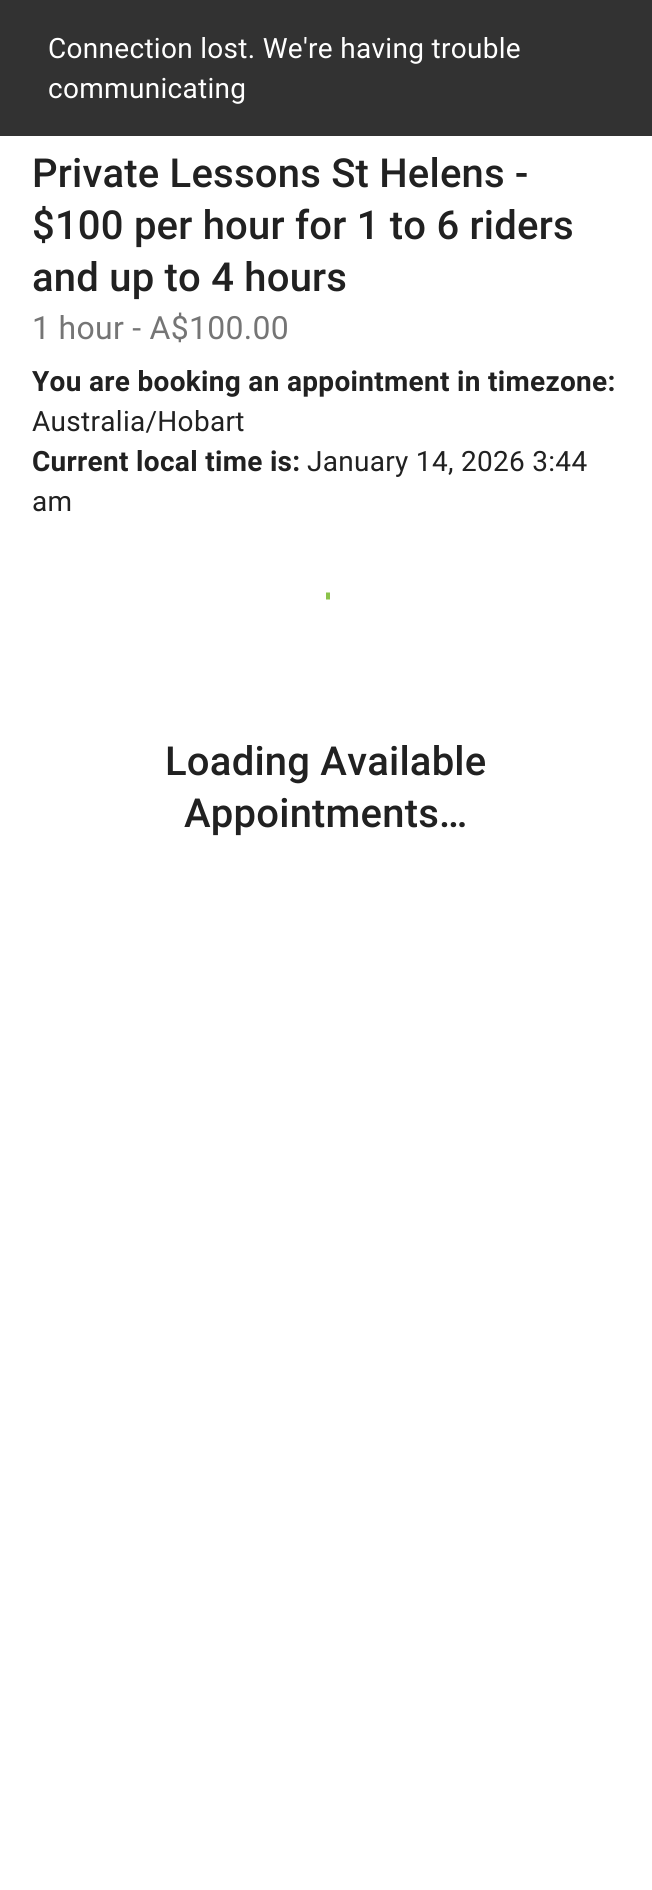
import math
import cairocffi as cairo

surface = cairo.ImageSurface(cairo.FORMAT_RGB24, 652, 1890)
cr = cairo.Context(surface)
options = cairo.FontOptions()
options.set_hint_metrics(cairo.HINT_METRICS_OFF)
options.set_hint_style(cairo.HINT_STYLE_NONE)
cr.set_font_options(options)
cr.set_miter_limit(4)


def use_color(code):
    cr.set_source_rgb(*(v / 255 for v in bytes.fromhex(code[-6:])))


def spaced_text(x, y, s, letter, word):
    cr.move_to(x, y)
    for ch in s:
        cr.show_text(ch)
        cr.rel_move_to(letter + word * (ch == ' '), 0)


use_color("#ffffff")
cr.paint()
use_color("#323232")
cr.rectangle(0, 0, 652, 136)
cr.fill()
cr.select_font_face("Roboto")
cr.set_font_size(28)
use_color("#ffffff")
spaced_text(48, 58, "Connection lost. We're having trouble", 0.3, 0)
spaced_text(48, 98, "communicating", 0.3, 0)
cr.select_font_face("Roboto Medium")
cr.set_font_size(40)
use_color("#212121")
spaced_text(32, 187, "Private Lessons St Helens -", 0.2, 0)
spaced_text(32, 239, "$100 per hour for 1 to 6 riders", 0.2, 0)
spaced_text(32, 291, "and up to 4 hours", 0.2, 0)
cr.select_font_face("Roboto")
cr.set_font_size(32)
use_color("#757575")
spaced_text(32, 339, "1 hour - A$100.00", 0.3, 0)
cr.select_font_face("Roboto", cairo.FONT_SLANT_NORMAL, cairo.FONT_WEIGHT_BOLD)
cr.set_font_size(28)
use_color("#212121")
spaced_text(32, 391, "You are booking an appointment in timezone:", 0.3, 0)
cr.select_font_face("Roboto")
spaced_text(32, 431, "Australia/Hobart", 0.3, 0)
cr.select_font_face("Roboto", cairo.FONT_SLANT_NORMAL, cairo.FONT_WEIGHT_BOLD)
spaced_text(32, 471, "Current local time is:", 0.3, 0)
cr.select_font_face("Roboto")
spaced_text(307, 471, "January 14, 2026 3:44", 0.3, 0)
spaced_text(32, 511, "am", 0.3, 0)
cr.new_path()
cr.move_to(326, 596)
cr.line_to(330, 596)
use_color("#8bc34a")
cr.set_line_width(7)
cr.stroke()
cr.select_font_face("Roboto Medium")
cr.set_font_size(40)
use_color("#212121")
spaced_text(165, 775, "Loading Available", 0.2, 0)
spaced_text(184, 827, "Appointments…", 0.2, 0)
surface.write_to_png("result.png")
